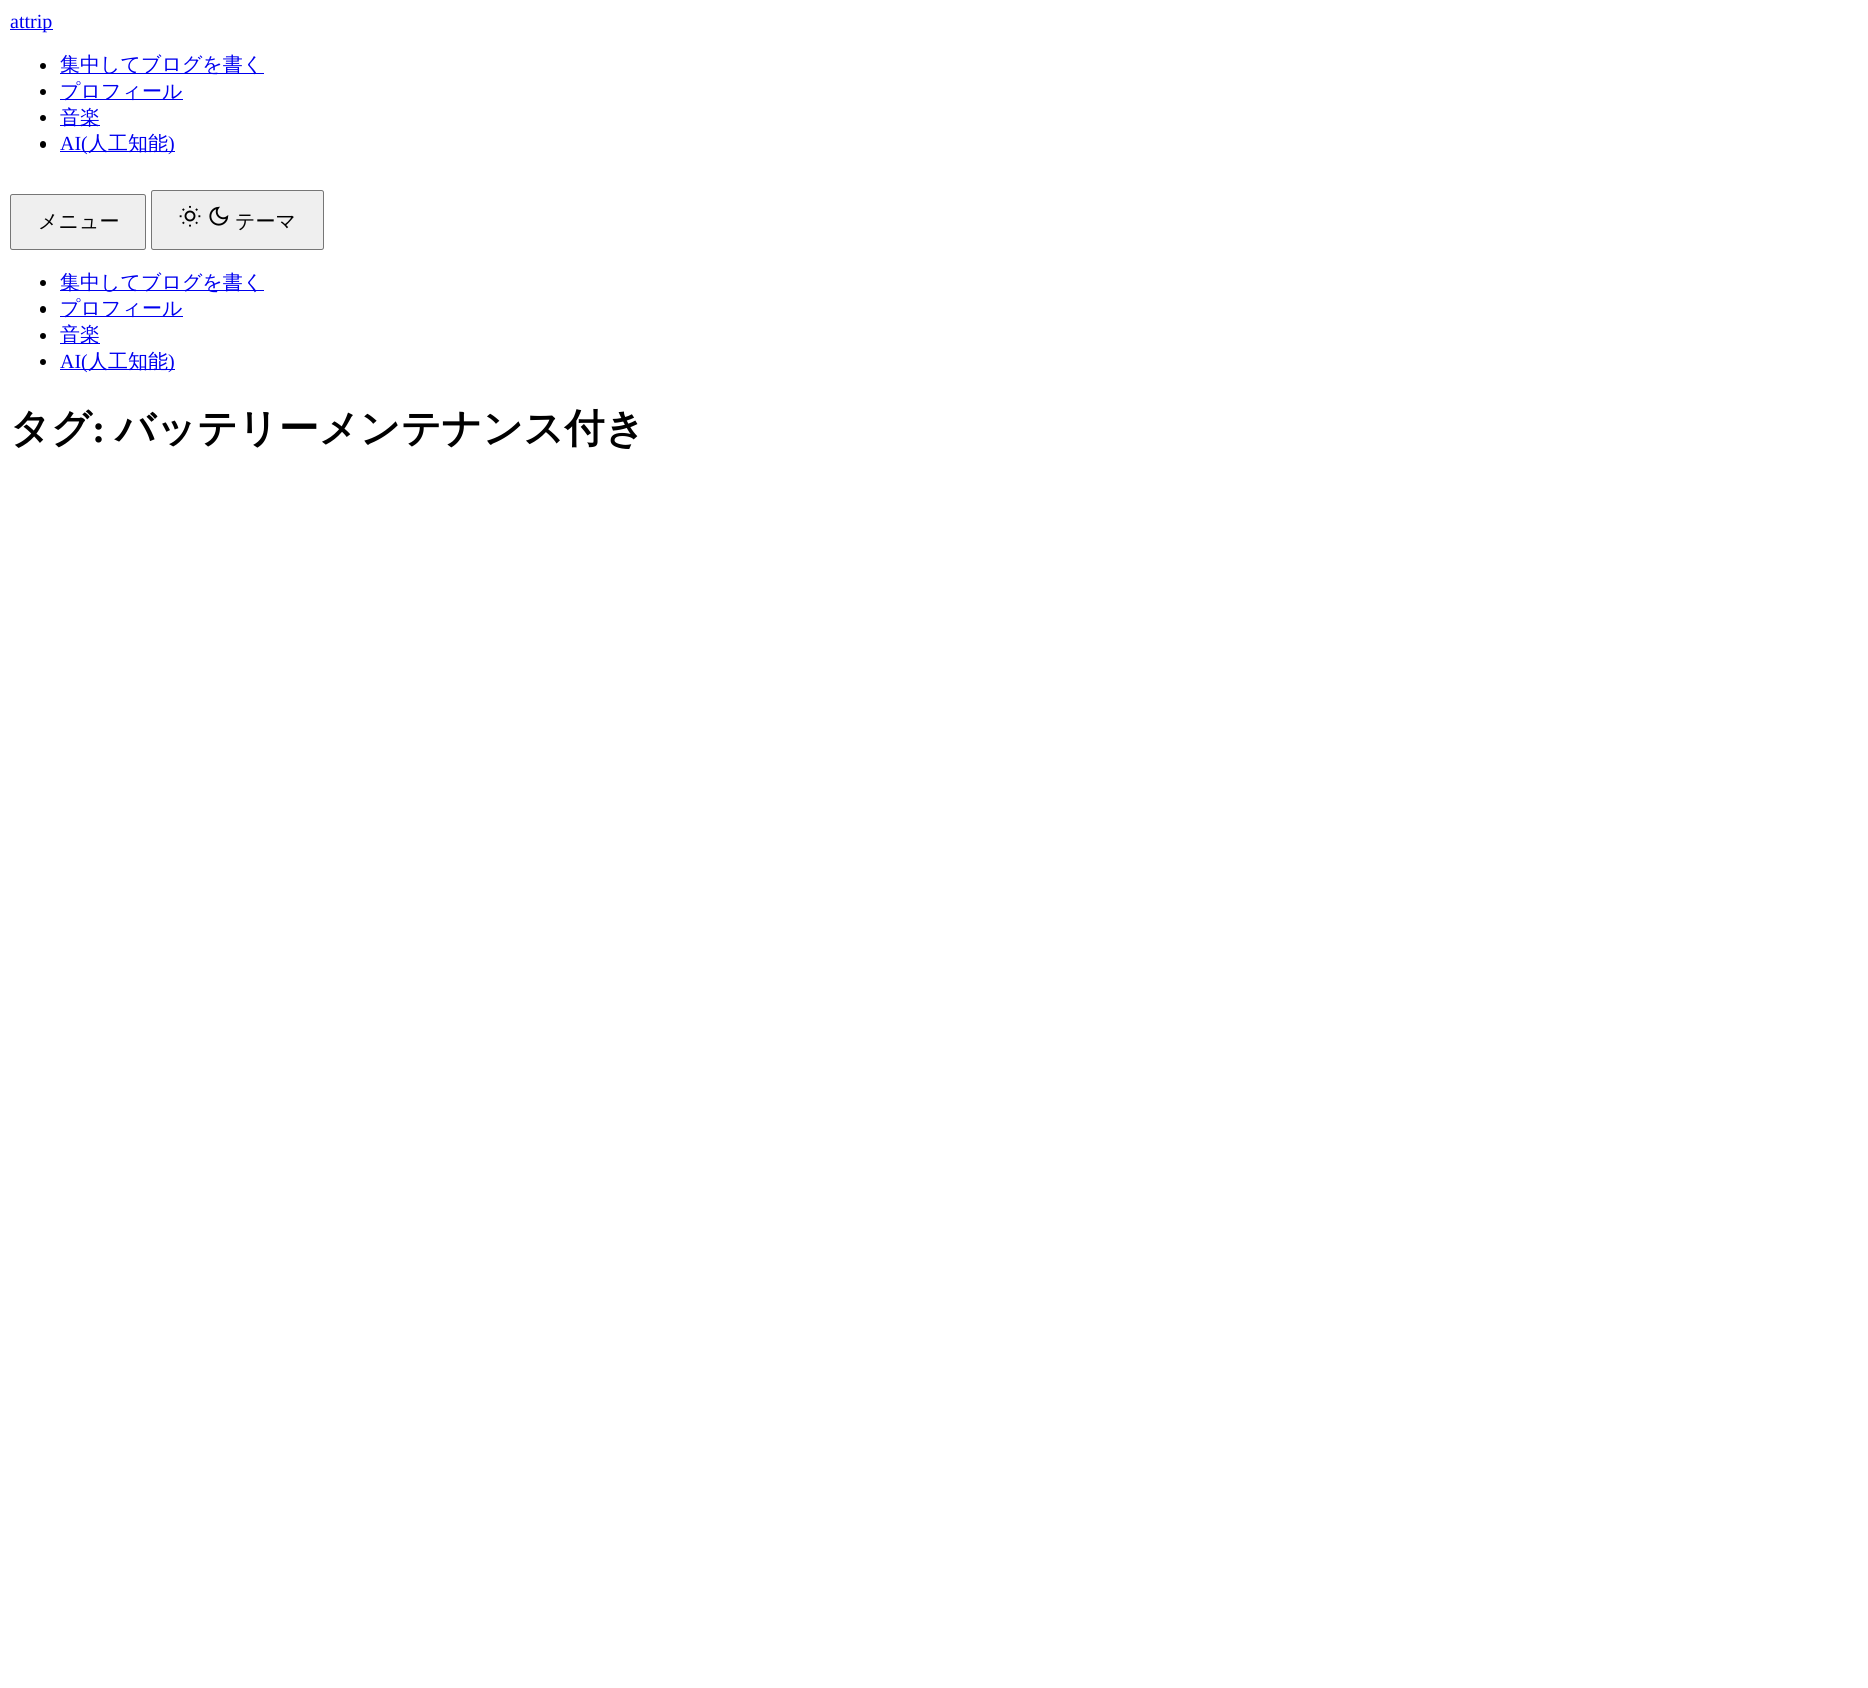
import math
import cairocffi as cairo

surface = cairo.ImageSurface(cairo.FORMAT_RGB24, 1868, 1688)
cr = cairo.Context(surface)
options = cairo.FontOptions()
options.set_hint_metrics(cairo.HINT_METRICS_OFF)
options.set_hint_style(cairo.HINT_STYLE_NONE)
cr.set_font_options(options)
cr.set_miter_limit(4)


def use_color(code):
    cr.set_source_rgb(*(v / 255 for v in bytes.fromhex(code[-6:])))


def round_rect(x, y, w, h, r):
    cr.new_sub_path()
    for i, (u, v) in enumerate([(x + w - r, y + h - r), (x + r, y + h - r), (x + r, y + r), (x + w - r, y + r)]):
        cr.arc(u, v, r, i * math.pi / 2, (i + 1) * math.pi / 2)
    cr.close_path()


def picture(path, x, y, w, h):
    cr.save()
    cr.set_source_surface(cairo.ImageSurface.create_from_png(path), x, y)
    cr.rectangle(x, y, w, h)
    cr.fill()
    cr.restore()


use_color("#ffffff")
cr.paint()
use_color("#0000ee")
cr.rectangle(10, 29, 43, 1)
cr.fill()
cr.select_font_face("Liberation Serif")
cr.set_font_size(20)
cr.move_to(10, 28)
cr.show_text("attrip")
use_color("#000000")
cr.new_path()
cr.arc(43, 66, 3, 0, 2 * math.pi)
cr.fill()
use_color("#0000ee")
cr.rectangle(60, 73, 204, 1)
cr.fill()
cr.select_font_face("WenQuanYi Zen Hei Medium")
cr.move_to(60, 71)
cr.show_text("集中してブログを書く")
use_color("#000000")
cr.new_path()
cr.arc(43, 92, 3, 0, 2 * math.pi)
cr.fill()
use_color("#0000ee")
cr.rectangle(60, 99, 123, 1)
cr.fill()
cr.move_to(60, 98)
cr.show_text("プロフィール")
use_color("#000000")
cr.new_path()
cr.arc(43, 118, 3, 0, 2 * math.pi)
cr.fill()
use_color("#0000ee")
cr.rectangle(60, 125, 40, 1)
cr.fill()
cr.move_to(60, 124)
cr.show_text("音楽")
use_color("#000000")
round_rect(40, 141, 6, 7, 3)
cr.fill()
use_color("#0000ee")
cr.rectangle(60, 151, 115, 1)
cr.fill()
cr.select_font_face("Liberation Serif")
cr.move_to(60, 150)
cr.show_text("AI(")
cr.select_font_face("WenQuanYi Zen Hei Medium")
cr.move_to(88, 150)
cr.show_text("人工知能")
cr.select_font_face("Liberation Serif")
cr.move_to(168, 150)
cr.show_text(")")
use_color("#efefef")
round_rect(10.5, 194.5, 135, 55, 2)
cr.fill_preserve()
use_color("#767676")
cr.set_line_width(1)
cr.stroke()
cr.select_font_face("WenQuanYi Zen Hei Medium")
use_color("#000000")
cr.move_to(38, 228)
cr.show_text("メニュー")
use_color("#efefef")
round_rect(151.5, 190.5, 172, 59, 2)
cr.fill_preserve()
use_color("#767676")
cr.stroke()
picture("img1.png", 179, 205, 22, 22)
picture("img2.png", 209, 206, 20, 20)
use_color("#000000")
cr.move_to(235, 228)
cr.show_text("テーマ")
cr.new_path()
cr.arc(43, 283, 3, 0, 2 * math.pi)
cr.fill()
use_color("#0000ee")
cr.rectangle(60, 290, 204, 1)
cr.fill()
cr.move_to(60, 289)
cr.show_text("集中してブログを書く")
use_color("#000000")
round_rect(40, 306, 6, 7, 3)
cr.fill()
use_color("#0000ee")
cr.rectangle(60, 316, 123, 1)
cr.fill()
cr.move_to(60, 315)
cr.show_text("プロフィール")
use_color("#000000")
cr.new_path()
cr.arc(43, 336, 3, 0, 2 * math.pi)
cr.fill()
use_color("#0000ee")
cr.rectangle(60, 343, 40, 1)
cr.fill()
cr.move_to(60, 341)
cr.show_text("音楽")
use_color("#000000")
cr.new_path()
cr.arc(43, 362, 3, 0, 2 * math.pi)
cr.fill()
use_color("#0000ee")
cr.rectangle(60, 369, 115, 1)
cr.fill()
cr.select_font_face("Liberation Serif")
cr.move_to(60, 368)
cr.show_text("AI(")
cr.select_font_face("WenQuanYi Zen Hei Medium")
cr.move_to(88, 368)
cr.show_text("人工知能")
cr.select_font_face("Liberation Serif")
cr.move_to(168, 368)
cr.show_text(")")
cr.select_font_face("WenQuanYi Zen Hei", cairo.FONT_SLANT_NORMAL, cairo.FONT_WEIGHT_BOLD)
cr.set_font_size(40)
use_color("#000000")
cr.move_to(10, 442)
cr.show_text("タグ")
cr.select_font_face("Liberation Serif", cairo.FONT_SLANT_NORMAL, cairo.FONT_WEIGHT_BOLD)
cr.move_to(92, 442)
cr.show_text(":")
cr.select_font_face("WenQuanYi Zen Hei", cairo.FONT_SLANT_NORMAL, cairo.FONT_WEIGHT_BOLD)
cr.move_to(115, 442)
cr.show_text("バッテリーメンテナンス付き")
surface.write_to_png("result.png")
